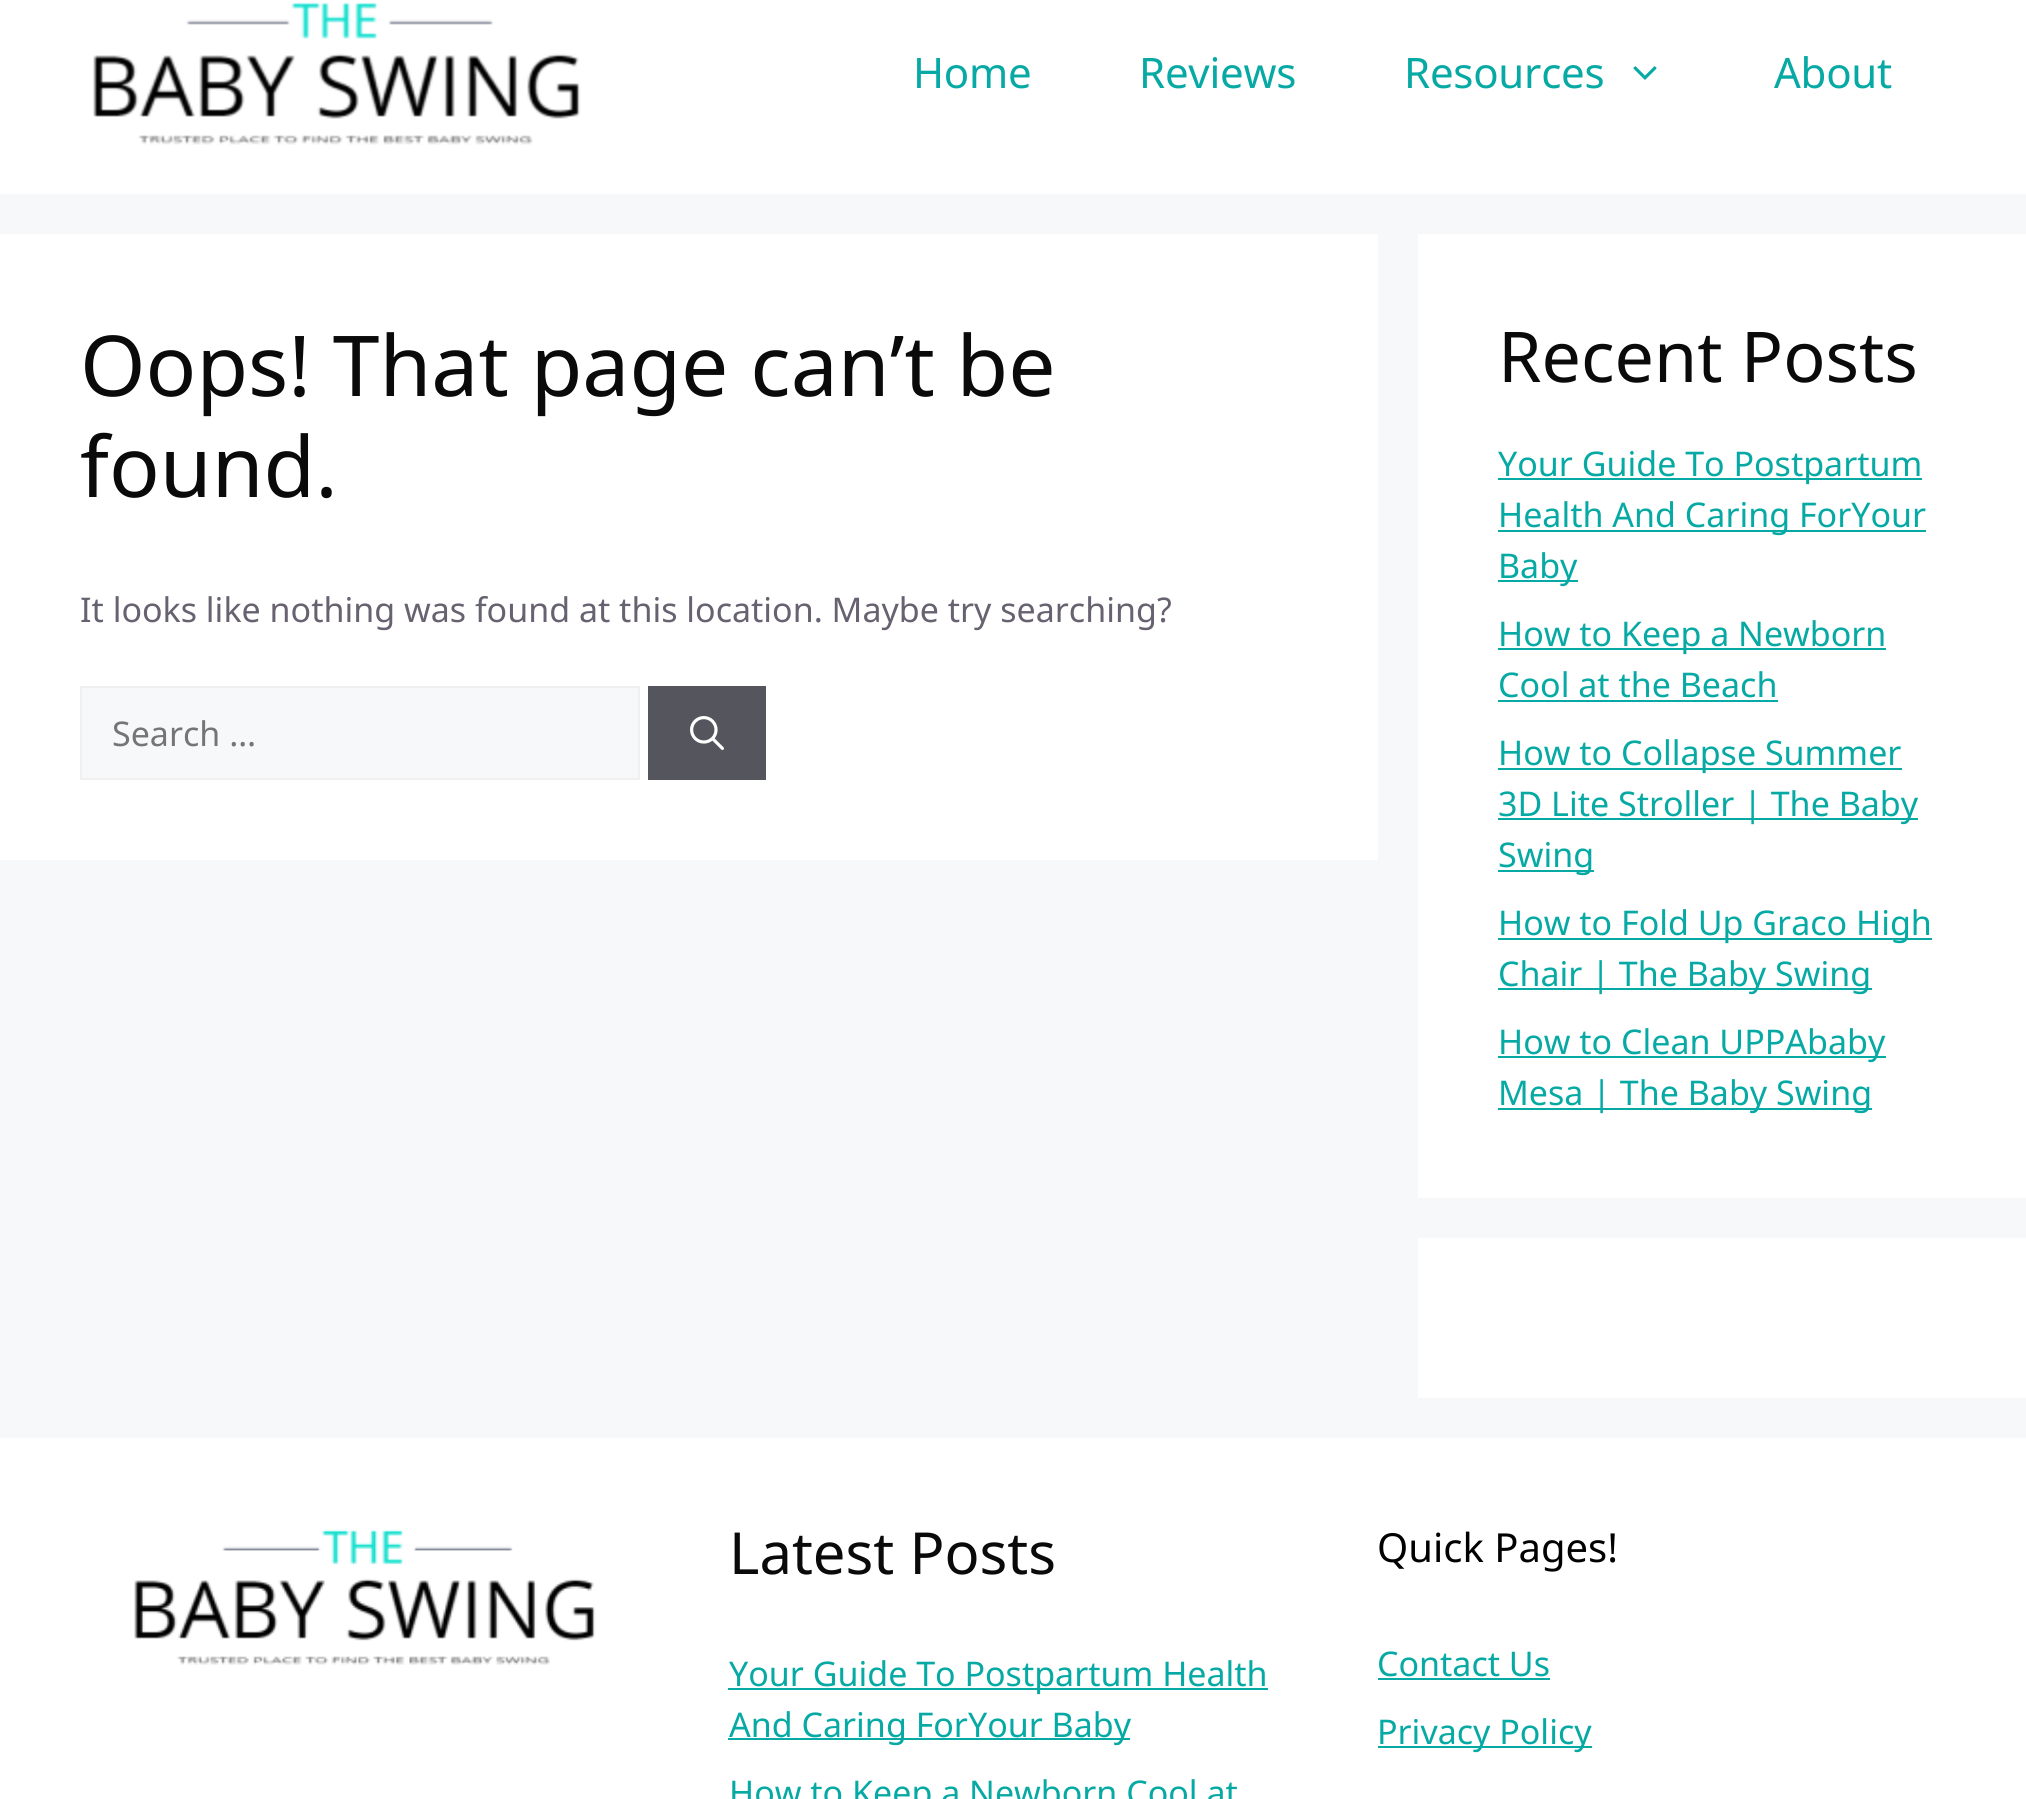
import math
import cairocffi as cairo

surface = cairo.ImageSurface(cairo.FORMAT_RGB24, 2026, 1799)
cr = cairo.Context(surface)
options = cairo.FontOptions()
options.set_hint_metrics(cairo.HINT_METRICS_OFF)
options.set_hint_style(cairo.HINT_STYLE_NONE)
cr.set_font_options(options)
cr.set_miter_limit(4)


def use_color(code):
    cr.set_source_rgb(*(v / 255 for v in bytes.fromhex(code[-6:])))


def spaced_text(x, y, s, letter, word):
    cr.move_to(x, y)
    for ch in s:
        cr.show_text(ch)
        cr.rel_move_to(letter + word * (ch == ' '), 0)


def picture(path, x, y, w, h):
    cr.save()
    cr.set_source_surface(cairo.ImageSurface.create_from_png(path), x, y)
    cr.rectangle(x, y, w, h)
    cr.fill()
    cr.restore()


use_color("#f7f8f9")
cr.paint()
use_color("#ffffff")
cr.rectangle(0, 0, 2026, 194)
cr.fill()
picture("img1.png", 93, 2, 488, 143)
cr.select_font_face("Noto Sans")
cr.set_font_size(42)
use_color("#06a9a3")
spaced_text(913, 88, "Home", -0.25, 0)
spaced_text(1139, 88, "Reviews", -0.25, 0)
spaced_text(1404, 88, "Resources", -0.25, 0)
picture("img2.png", 1633, 66, 24, 14)
spaced_text(1774, 88, "About", -0.25, 0)
use_color("#ffffff")
cr.rectangle(0, 234, 1378, 626)
cr.fill()
cr.set_font_size(84)
use_color("#0a0a0a")
cr.move_to(80, 396)
cr.show_text("Oops! That page can’t be")
cr.move_to(80, 497)
cr.show_text("found.")
cr.set_font_size(34)
use_color("#676170")
cr.move_to(80, 622)
cr.show_text("It looks like nothing was found at this location. Maybe try searching?")
use_color("#f7f8f9")
cr.rectangle(81, 687, 558, 92)
cr.fill_preserve()
use_color("#f0f0f0")
cr.stroke()
use_color("#757575")
cr.move_to(112, 746)
cr.show_text("Search …")
use_color("#55555e")
cr.rectangle(648, 686, 118, 94)
cr.fill()
picture("img3.png", 690, 716, 34, 34)
use_color("#ffffff")
cr.rectangle(1418, 234, 608, 964)
cr.fill()
cr.set_font_size(70)
use_color("#0a0a0a")
cr.move_to(1498, 382)
cr.show_text("Recent Posts")
use_color("#06a9a3")
cr.rectangle(1498, 478, 424, 2)
cr.fill()
cr.set_font_size(34)
cr.move_to(1498, 476)
cr.show_text("Your Guide To Postpartum")
cr.rectangle(1498, 530, 428, 2)
cr.fill()
cr.move_to(1498, 527)
cr.show_text("Health And Caring ForYour")
cr.rectangle(1498, 580, 80, 2)
cr.fill()
cr.move_to(1498, 578)
cr.show_text("Baby")
cr.rectangle(1498, 648, 388, 2)
cr.fill()
cr.move_to(1498, 646)
cr.show_text("How to Keep a Newborn")
cr.move_to(1498, 697)
cr.show_text("Cool at the Beach")
cr.rectangle(1498, 700, 280, 2)
cr.fill()
cr.rectangle(1498, 768, 404, 2)
cr.fill()
cr.move_to(1498, 765)
cr.show_text("How to Collapse Summer")
cr.rectangle(1498, 818, 420, 2)
cr.fill()
cr.move_to(1498, 816)
cr.show_text("3D Lite Stroller | The Baby")
cr.rectangle(1498, 870, 96, 2)
cr.fill()
cr.move_to(1498, 867)
cr.show_text("Swing")
cr.rectangle(1498, 938, 434, 2)
cr.fill()
cr.move_to(1498, 935)
cr.show_text("How to Fold Up Graco High")
cr.rectangle(1498, 988, 374, 2)
cr.fill()
cr.move_to(1498, 986)
cr.show_text("Chair | The Baby Swing")
cr.rectangle(1498, 1056, 388, 2)
cr.fill()
cr.move_to(1498, 1054)
cr.show_text("How to Clean UPPAbaby")
cr.rectangle(1498, 1108, 374, 2)
cr.fill()
cr.move_to(1498, 1105)
cr.show_text("Mesa | The Baby Swing")
use_color("#ffffff")
cr.rectangle(1418, 1238, 608, 160)
cr.fill()
cr.rectangle(0, 1438, 2026, 361)
cr.fill()
picture("img4.png", 134, 1529, 462, 136)
cr.set_font_size(58)
use_color("#0a0a0a")
cr.move_to(729, 1574)
cr.show_text("Latest Posts")
use_color("#06a9a3")
cr.rectangle(728, 1688, 540, 2)
cr.fill()
cr.set_font_size(34)
cr.move_to(729, 1686)
cr.show_text("Your Guide To Postpartum Health")
cr.rectangle(728, 1738, 402, 2)
cr.fill()
cr.move_to(729, 1737)
cr.show_text("And Caring ForYour Baby")
cr.move_to(729, 1805)
cr.show_text("How to Keep a Newborn Cool at")
cr.set_font_size(40)
use_color("#000000")
cr.move_to(1377, 1562)
cr.show_text("Quick Pages!")
cr.set_font_size(34)
use_color("#06a9a3")
cr.move_to(1377, 1676)
cr.show_text("Contact Us")
cr.rectangle(1378, 1678, 172, 2)
cr.fill()
cr.rectangle(1378, 1746, 214, 2)
cr.fill()
cr.move_to(1377, 1744)
cr.show_text("Privacy Policy")
surface.write_to_png("result.png")
